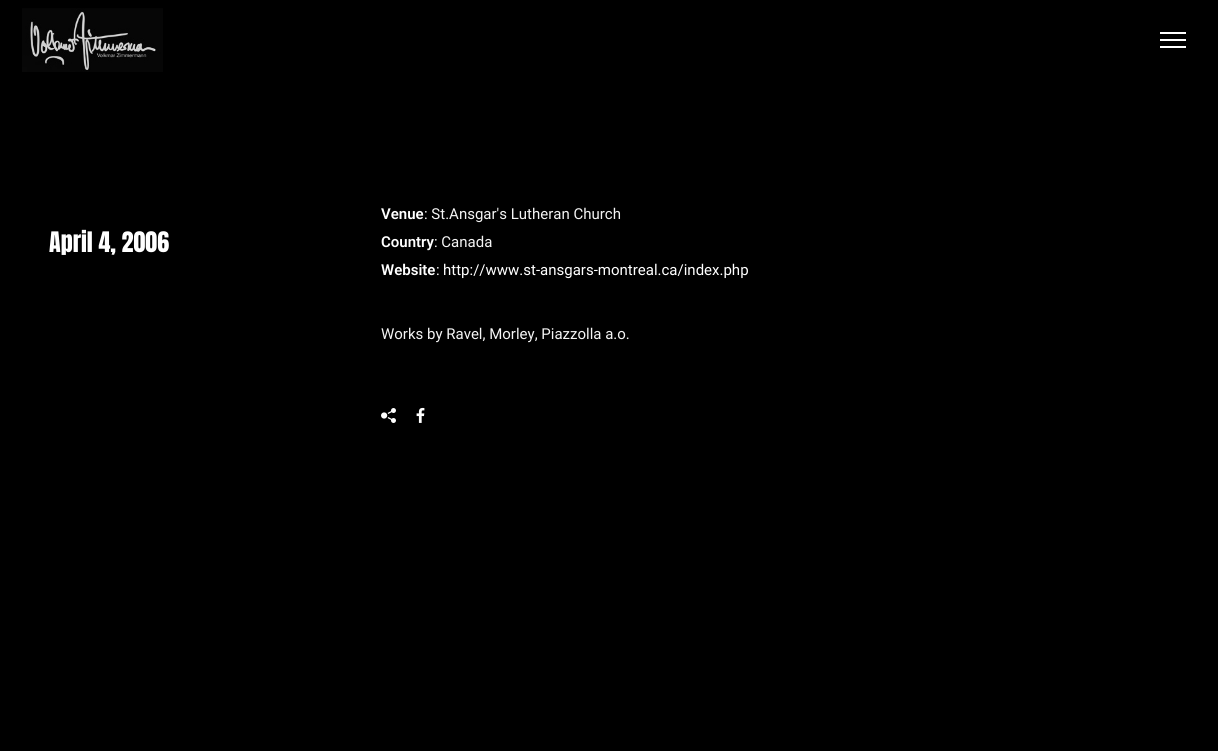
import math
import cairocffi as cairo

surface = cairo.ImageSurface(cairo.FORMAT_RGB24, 1218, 751)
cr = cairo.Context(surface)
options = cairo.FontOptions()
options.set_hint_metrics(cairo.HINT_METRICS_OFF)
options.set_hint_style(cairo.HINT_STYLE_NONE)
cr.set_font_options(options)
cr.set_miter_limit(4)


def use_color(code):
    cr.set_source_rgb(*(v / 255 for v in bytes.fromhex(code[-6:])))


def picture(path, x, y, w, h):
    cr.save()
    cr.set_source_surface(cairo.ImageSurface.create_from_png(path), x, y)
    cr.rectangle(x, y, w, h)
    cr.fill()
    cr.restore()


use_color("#000000")
cr.paint()
picture("img1.png", 22, 8, 141, 64)
use_color("#ffffff")
cr.rectangle(1160, 32, 26, 2)
cr.fill()
cr.rectangle(1160, 39, 26, 2)
cr.fill()
cr.rectangle(1160, 46, 26, 2)
cr.fill()
cr.select_font_face("Anton")
cr.set_font_size(24)
cr.move_to(49, 252)
cr.show_text("April 4, 2006")
cr.select_font_face("Roboto SemiBold")
cr.set_font_size(15)
cr.move_to(381, 219)
cr.show_text("Venue")
cr.select_font_face("Roboto")
use_color("#f4f4f4")
cr.move_to(424, 219)
cr.show_text(": St.Ansgar's Lutheran Church")
cr.select_font_face("Roboto SemiBold")
use_color("#ffffff")
cr.move_to(381, 247)
cr.show_text("Country")
cr.select_font_face("Roboto")
use_color("#f4f4f4")
cr.move_to(434, 247)
cr.show_text(": Canada")
cr.select_font_face("Roboto SemiBold")
use_color("#ffffff")
cr.move_to(381, 275)
cr.show_text("Website")
cr.select_font_face("Roboto")
use_color("#f4f4f4")
cr.move_to(436, 275)
cr.show_text(":")
use_color("#ffffff")
cr.move_to(443, 275)
cr.show_text("http://www.st-ansgars-montreal.ca/index.php")
use_color("#f4f4f4")
cr.move_to(381, 339)
cr.show_text("Works by Ravel, Morley, Piazzolla a.o.")
picture("img2.png", 381, 408, 15, 15)
picture("img3.png", 416, 407, 9, 16)
surface.write_to_png("result.png")
